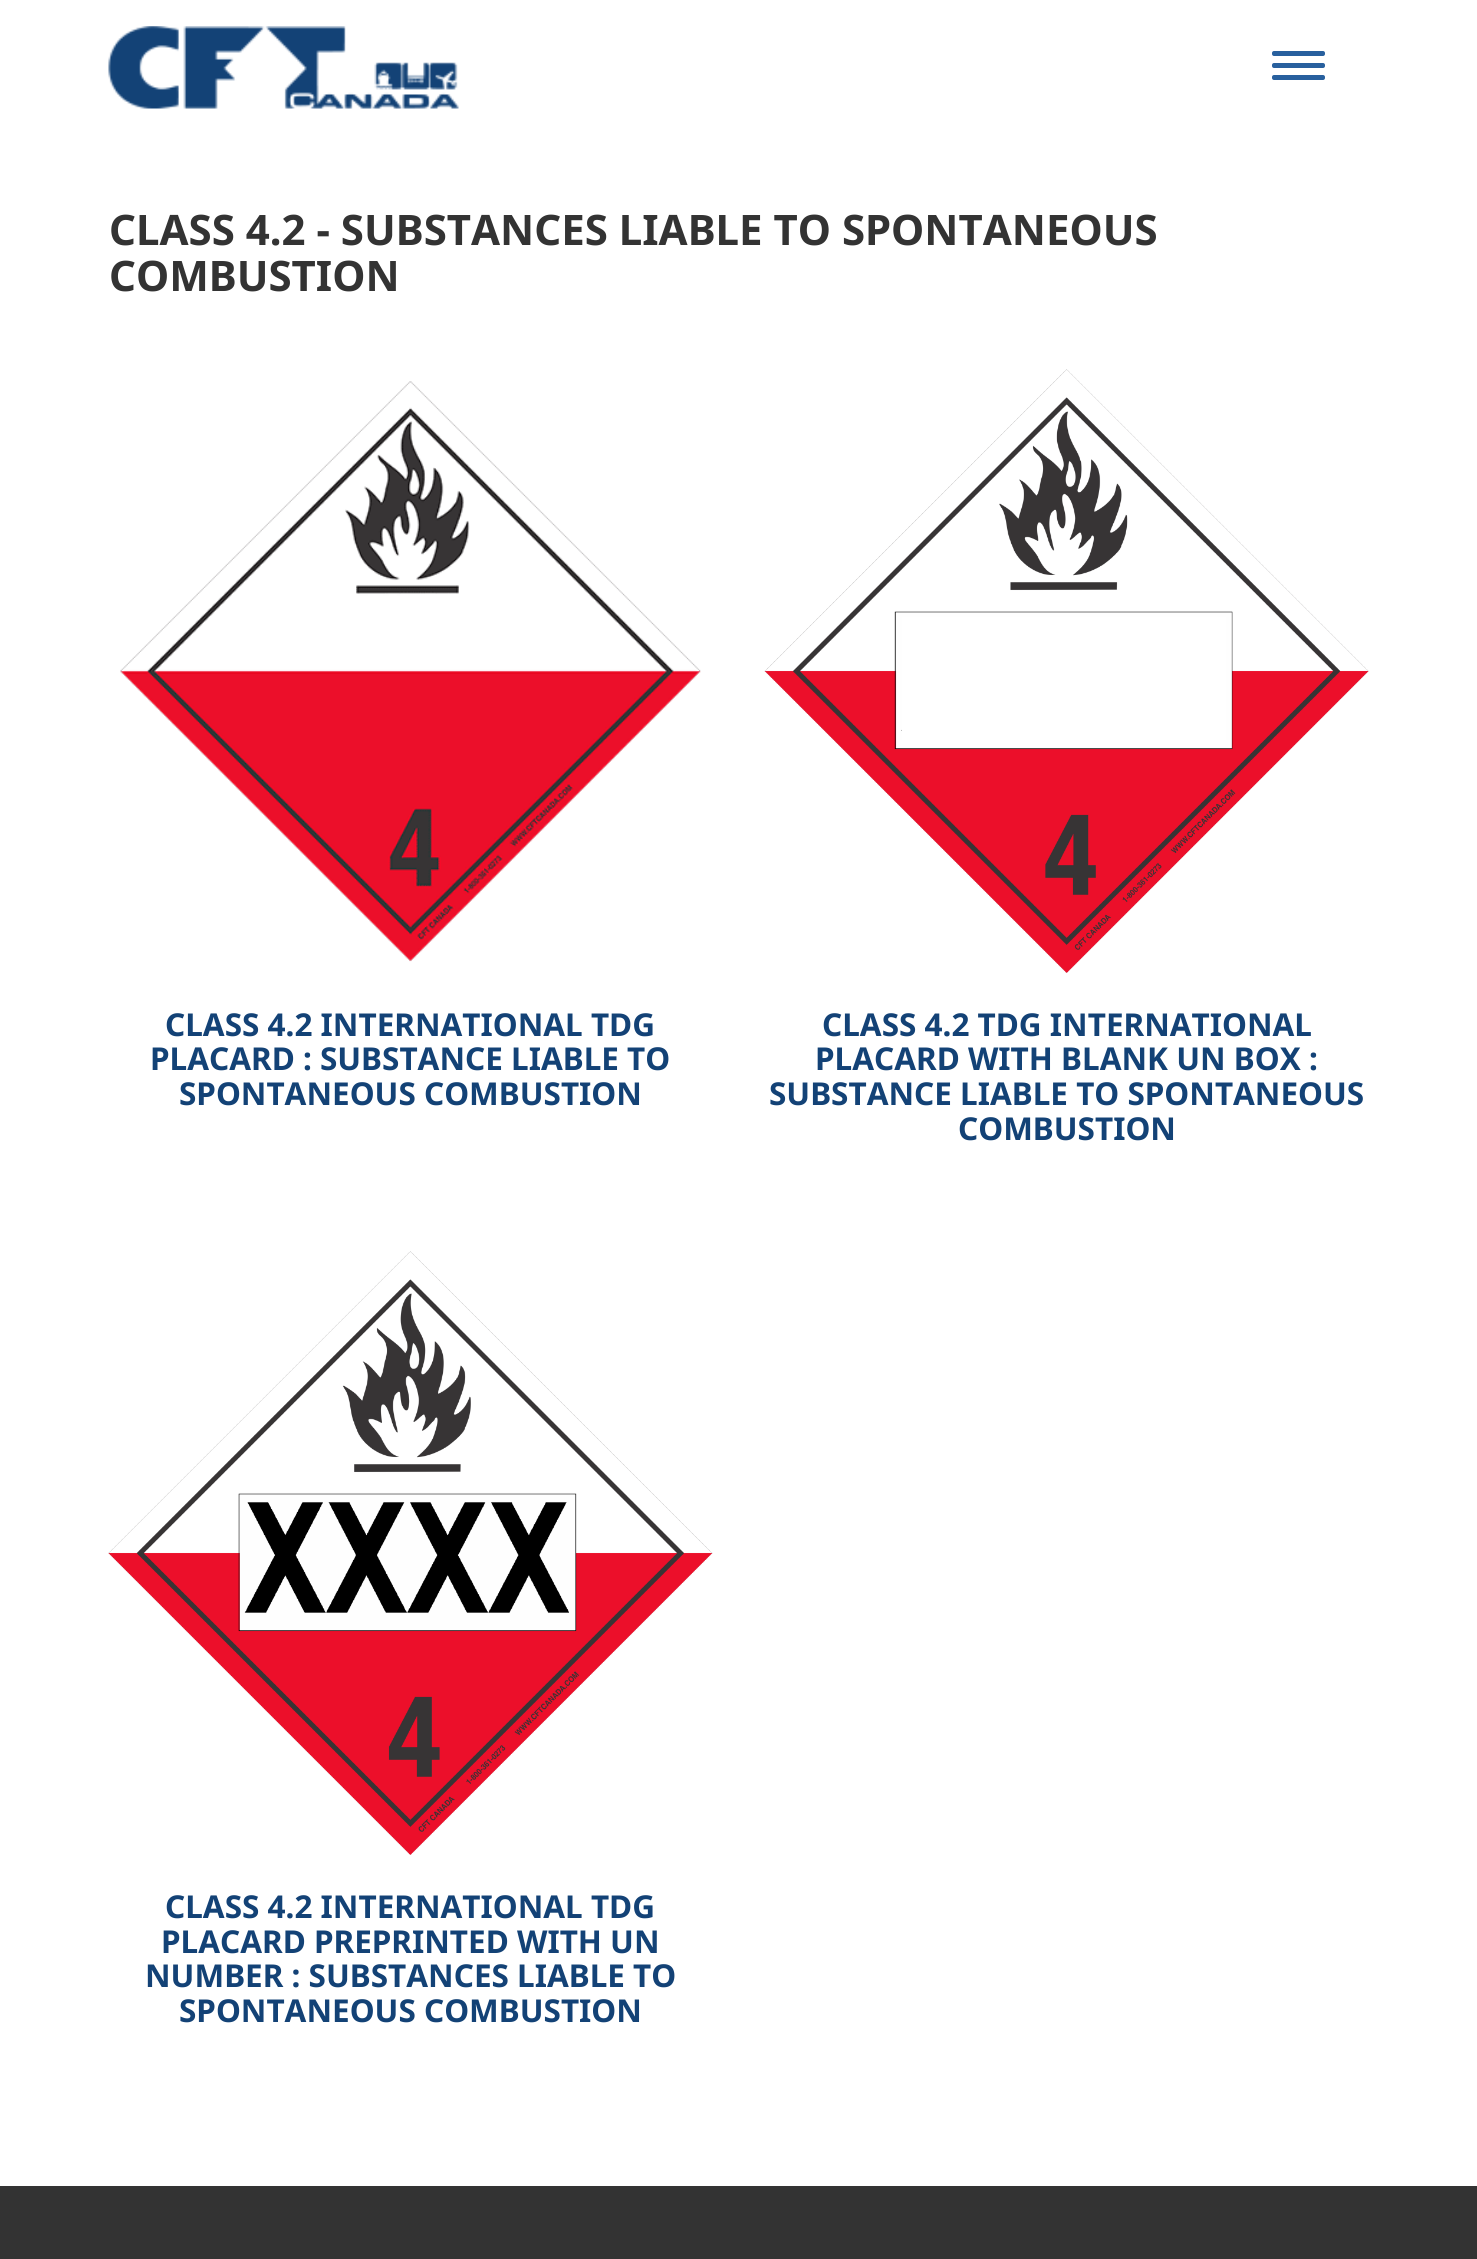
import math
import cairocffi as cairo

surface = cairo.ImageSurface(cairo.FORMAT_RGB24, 1477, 2259)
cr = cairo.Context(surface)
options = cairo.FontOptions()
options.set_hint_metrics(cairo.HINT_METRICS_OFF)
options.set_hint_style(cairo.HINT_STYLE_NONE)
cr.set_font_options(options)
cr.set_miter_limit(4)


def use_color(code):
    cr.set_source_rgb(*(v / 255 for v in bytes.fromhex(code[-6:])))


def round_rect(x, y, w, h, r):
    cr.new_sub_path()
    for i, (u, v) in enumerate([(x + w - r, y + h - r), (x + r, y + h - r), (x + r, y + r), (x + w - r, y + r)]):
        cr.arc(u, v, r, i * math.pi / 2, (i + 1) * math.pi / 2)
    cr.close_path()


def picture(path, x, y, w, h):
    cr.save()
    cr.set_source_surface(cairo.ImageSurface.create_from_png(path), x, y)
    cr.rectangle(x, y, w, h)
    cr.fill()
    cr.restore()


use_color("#ffffff")
cr.paint()
picture("img1.png", 108, 26, 351, 83)
use_color("#28609e")
round_rect(1272, 51, 53, 5, 2)
cr.fill()
round_rect(1272, 63, 53, 5, 2)
cr.fill()
round_rect(1272, 75, 53, 5, 2)
cr.fill()
cr.select_font_face("Noto Sans", cairo.FONT_SLANT_NORMAL, cairo.FONT_WEIGHT_BOLD)
cr.set_font_size(42)
use_color("#333333")
cr.move_to(109, 245)
cr.show_text("CLASS 4.2 - SUBSTANCES LIABLE TO SPONTANEOUS")
cr.move_to(109, 291)
cr.show_text("COMBUSTION")
picture("img2.png", 120, 381, 581, 581)
cr.set_font_size(31.5)
use_color("#134276")
cr.move_to(165, 1036)
cr.show_text("CLASS 4.2 INTERNATIONAL TDG")
cr.move_to(150, 1070)
cr.show_text("PLACARD : SUBSTANCE LIABLE TO")
cr.move_to(179, 1105)
cr.show_text("SPONTANEOUS COMBUSTION")
picture("img3.png", 764, 369, 605, 604)
cr.move_to(822, 1036)
cr.show_text("CLASS 4.2 TDG INTERNATIONAL")
cr.move_to(815, 1070)
cr.show_text("PLACARD WITH BLANK UN BOX :")
cr.move_to(769, 1105)
cr.show_text("SUBSTANCE LIABLE TO SPONTANEOUS")
cr.move_to(958, 1140)
cr.show_text("COMBUSTION")
picture("img4.png", 108, 1251, 605, 604)
cr.move_to(165, 1918)
cr.show_text("CLASS 4.2 INTERNATIONAL TDG")
cr.move_to(161, 1953)
cr.show_text("PLACARD PREPRINTED WITH UN")
cr.move_to(145, 1987)
cr.show_text("NUMBER : SUBSTANCES LIABLE TO")
cr.move_to(179, 2022)
cr.show_text("SPONTANEOUS COMBUSTION")
use_color("#333333")
cr.rectangle(0, 2186, 1477, 73)
cr.fill()
surface.write_to_png("result.png")
